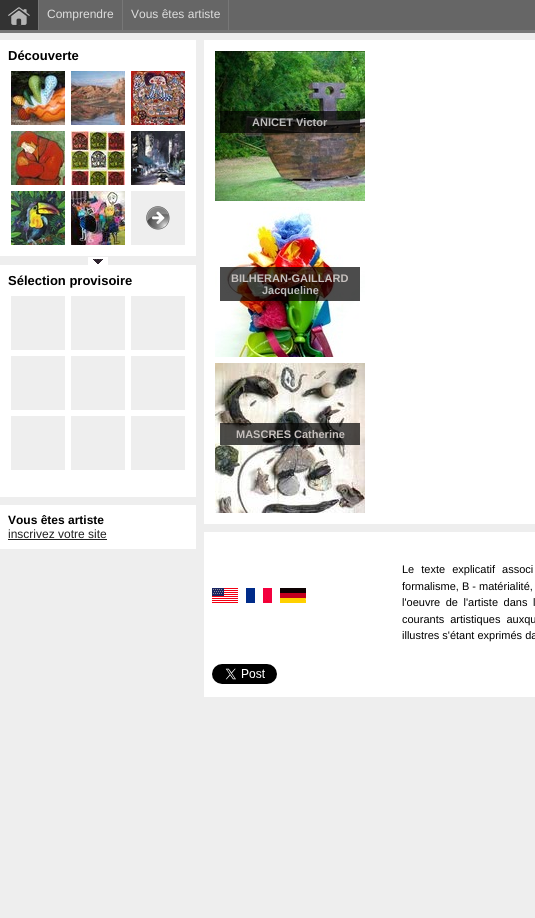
import math
import cairocffi as cairo

surface = cairo.ImageSurface(cairo.FORMAT_RGB24, 535, 918)
cr = cairo.Context(surface)
options = cairo.FontOptions()
options.set_hint_metrics(cairo.HINT_METRICS_OFF)
options.set_hint_style(cairo.HINT_STYLE_NONE)
cr.set_font_options(options)
cr.set_miter_limit(4)


def use_color(code):
    cr.set_source_rgb(*(v / 255 for v in bytes.fromhex(code[-6:])))


def spaced_text(x, y, s, letter, word):
    cr.move_to(x, y)
    for ch in s:
        cr.show_text(ch)
        cr.rel_move_to(letter + word * (ch == ' '), 0)


def picture(path, x, y, w, h):
    cr.save()
    cr.set_source_surface(cairo.ImageSurface.create_from_png(path), x, y)
    cr.rectangle(x, y, w, h)
    cr.fill()
    cr.restore()


use_color("#eeeeee")
cr.paint()
use_color("#666666")
cr.rectangle(39, 0, 496, 30)
cr.fill()
use_color("#777777")
cr.rectangle(0, 30, 535, 3)
cr.fill()
use_color("#333333")
cr.rectangle(0, 0, 38, 30)
cr.fill()
use_color("#777777")
cr.rectangle(38, 0, 1, 30)
cr.fill()
picture("img1.png", 8, 7, 22, 19)
cr.rectangle(122, 0, 1, 30)
cr.fill()
cr.select_font_face("Liberation Sans")
cr.set_font_size(12)
use_color("#dddddd")
cr.move_to(47, 18)
cr.show_text("Comprendre")
use_color("#777777")
cr.rectangle(228, 0, 1, 30)
cr.fill()
use_color("#dddddd")
cr.move_to(131, 18)
cr.show_text("Vous êtes artiste")
use_color("#ffffff")
cr.rectangle(0, 40, 196, 216)
cr.fill()
cr.select_font_face("Liberation Sans", cairo.FONT_SLANT_NORMAL, cairo.FONT_WEIGHT_BOLD)
cr.set_font_size(13)
use_color("#000000")
cr.move_to(8, 60)
cr.show_text("Découverte")
picture("img2.png", 11, 71, 54, 54)
picture("img3.png", 71, 71, 54, 54)
picture("img4.png", 131, 71, 54, 54)
picture("img5.png", 11, 131, 54, 54)
picture("img6.png", 71, 131, 54, 54)
picture("img7.png", 131, 131, 54, 54)
picture("img8.png", 11, 191, 54, 54)
picture("img9.png", 71, 191, 54, 54)
use_color("#eeeeee")
cr.rectangle(131, 191, 54, 54)
cr.fill()
picture("img10.png", 146, 206, 24, 24)
use_color("#ffffff")
cr.rectangle(88, 257, 20, 8)
cr.fill()
picture("img11.png", 93, 259, 10, 5)
cr.rectangle(0, 265, 196, 232)
cr.fill()
use_color("#000000")
cr.move_to(8, 285)
cr.show_text("Sélection provisoire")
use_color("#eeeeee")
cr.rectangle(11, 296, 54, 54)
cr.fill()
cr.rectangle(71, 296, 54, 54)
cr.fill()
cr.rectangle(131, 296, 54, 54)
cr.fill()
cr.rectangle(11, 356, 54, 54)
cr.fill()
cr.rectangle(71, 356, 54, 54)
cr.fill()
cr.rectangle(131, 356, 54, 54)
cr.fill()
cr.rectangle(11, 416, 54, 54)
cr.fill()
cr.rectangle(71, 416, 54, 54)
cr.fill()
cr.rectangle(131, 416, 54, 54)
cr.fill()
use_color("#ffffff")
cr.rectangle(0, 505, 196, 44)
cr.fill()
cr.set_font_size(12)
use_color("#000000")
cr.move_to(8, 524)
cr.show_text("Vous êtes artiste")
cr.select_font_face("Liberation Sans")
use_color("#202020")
cr.move_to(8, 538)
cr.show_text("inscrivez votre site")
cr.rectangle(8, 539, 99, 1)
cr.fill()
use_color("#ffffff")
cr.rectangle(204, 40, 331, 484)
cr.fill()
picture("img12.png", 215, 51, 150, 150)
cr.set_source_rgba(0, 0, 0, 0.7)
cr.rectangle(220, 111, 140, 22)
cr.fill()
cr.select_font_face("Liberation Sans", cairo.FONT_SLANT_NORMAL, cairo.FONT_WEIGHT_BOLD)
cr.set_font_size(11)
use_color("#bcbcbb")
cr.move_to(252, 126)
cr.show_text("ANICET Victor")
picture("img13.png", 215, 207, 150, 150)
cr.set_source_rgba(0, 0, 0, 0.7)
cr.rectangle(220, 267, 140, 34)
cr.fill()
use_color("#c6c0bd")
cr.move_to(231, 282)
cr.show_text("BILHERAN-GAILLARD")
use_color("#bcbcbb")
cr.move_to(262, 294)
cr.show_text("Jacqueline")
picture("img14.png", 215, 363, 150, 150)
cr.set_source_rgba(0, 0, 0, 0.7)
cr.rectangle(220, 423, 140, 22)
cr.fill()
use_color("#c6c0bd")
cr.move_to(236, 438)
cr.show_text("MASCRES Catherine")
use_color("#ffffff")
cr.rectangle(204, 532, 331, 165)
cr.fill()
picture("img15.png", 212, 588, 26, 15)
picture("img16.png", 246, 588, 26, 15)
picture("img17.png", 280, 588, 26, 15)
picture("img18.png", 212, 664, 65, 20)
cr.select_font_face("Liberation Sans")
use_color("#000000")
spaced_text(402, 573, "Le texte explicatif associ", 0, 4)
cr.move_to(402, 590)
cr.show_text("formalisme, B - matérialité,")
spaced_text(402, 606, "l'oeuvre de l'artiste dans l", 0, 2.5)
spaced_text(402, 623, "courants artistiques auxqu", 0, 3)
cr.move_to(402, 639)
cr.show_text("illustres s'étant exprimés da")
surface.write_to_png("result.png")
